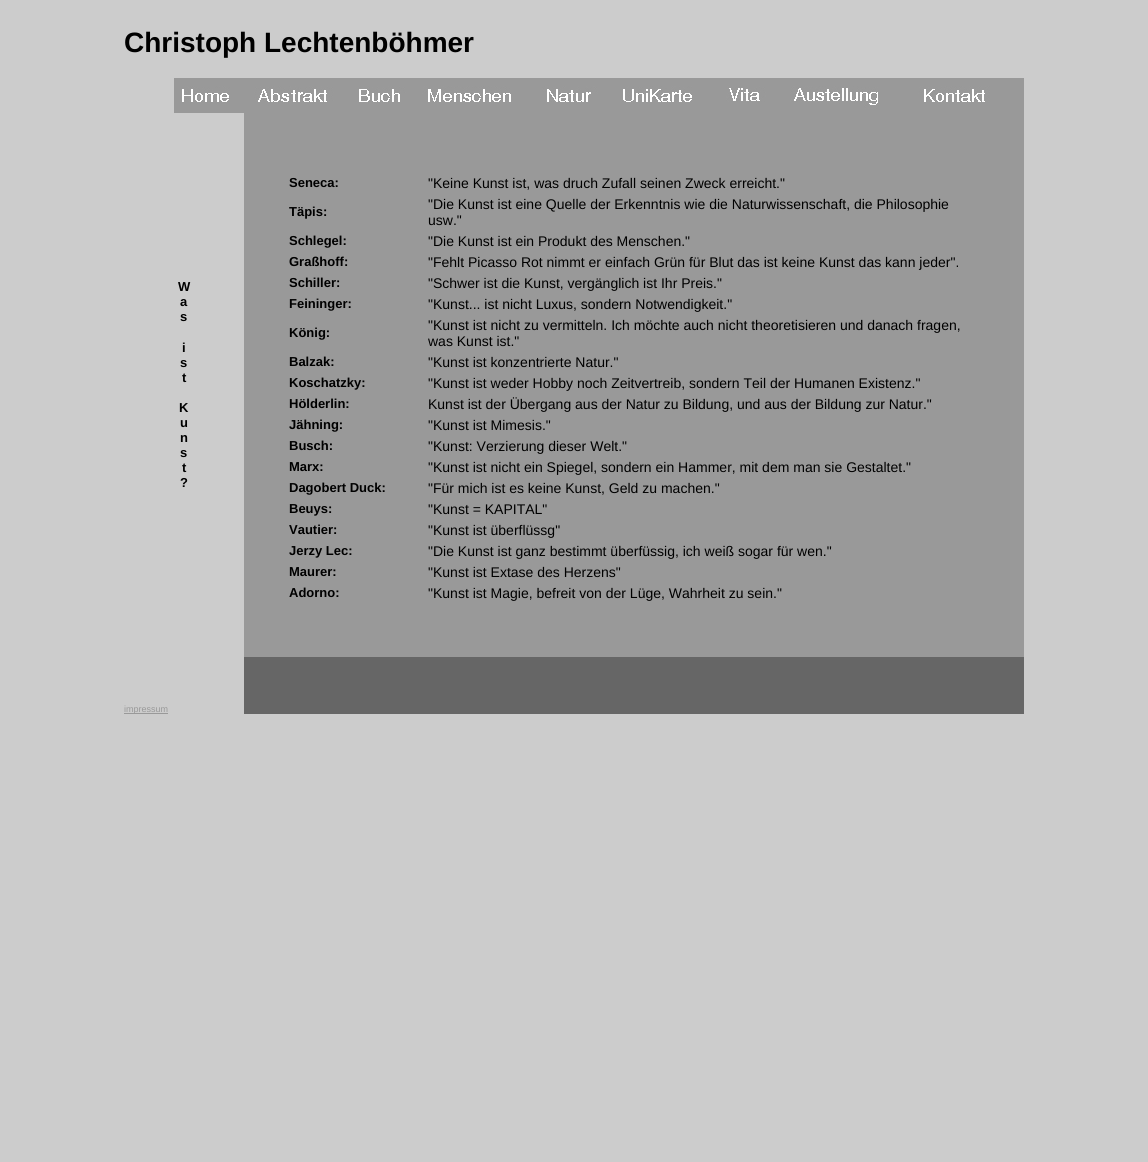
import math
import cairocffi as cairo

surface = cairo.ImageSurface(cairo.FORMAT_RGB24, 1148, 1162)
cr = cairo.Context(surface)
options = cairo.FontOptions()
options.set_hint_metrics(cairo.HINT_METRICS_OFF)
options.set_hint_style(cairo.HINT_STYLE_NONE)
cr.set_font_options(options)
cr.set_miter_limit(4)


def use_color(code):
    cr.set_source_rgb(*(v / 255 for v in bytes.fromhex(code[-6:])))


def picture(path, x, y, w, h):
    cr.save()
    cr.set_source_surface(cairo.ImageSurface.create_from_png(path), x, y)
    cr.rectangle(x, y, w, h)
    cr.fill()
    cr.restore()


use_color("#cccccc")
cr.paint()
cr.select_font_face("Liberation Sans", cairo.FONT_SLANT_NORMAL, cairo.FONT_WEIGHT_BOLD)
cr.set_font_size(28)
use_color("#000000")
cr.move_to(124, 52)
cr.show_text("Christoph Lechtenböhmer")
picture("img1.png", 174, 78, 850, 35)
cr.set_font_size(13)
cr.move_to(178, 291)
cr.show_text("W")
cr.move_to(180, 306)
cr.show_text("a")
cr.move_to(180, 321)
cr.show_text("s")
cr.move_to(182, 352)
cr.show_text("i")
cr.move_to(180, 367)
cr.show_text("s")
cr.move_to(182, 382)
cr.show_text("t")
cr.move_to(179, 412)
cr.show_text("K")
cr.move_to(180, 427)
cr.show_text("u")
cr.move_to(180, 442)
cr.show_text("n")
cr.move_to(180, 457)
cr.show_text("s")
cr.move_to(182, 472)
cr.show_text("t")
cr.move_to(180, 487)
cr.show_text("?")
use_color("#999999")
cr.rectangle(244, 113, 780, 544)
cr.fill()
use_color("#000000")
cr.move_to(289, 187)
cr.show_text("Seneca:")
cr.select_font_face("Liberation Sans")
cr.set_font_size(14)
cr.move_to(428, 188)
cr.show_text("\"Keine Kunst ist, was druch Zufall seinen Zweck erreicht.\"")
cr.select_font_face("Liberation Sans", cairo.FONT_SLANT_NORMAL, cairo.FONT_WEIGHT_BOLD)
cr.set_font_size(13)
cr.move_to(289, 216)
cr.show_text("Täpis:")
cr.select_font_face("Liberation Sans")
cr.set_font_size(14)
cr.move_to(428, 209)
cr.show_text("\"Die Kunst ist eine Quelle der Erkenntnis wie die Naturwissenschaft, die Philosophie")
cr.move_to(428, 225)
cr.show_text("usw.\"")
cr.select_font_face("Liberation Sans", cairo.FONT_SLANT_NORMAL, cairo.FONT_WEIGHT_BOLD)
cr.set_font_size(13)
cr.move_to(289, 245)
cr.show_text("Schlegel:")
cr.select_font_face("Liberation Sans")
cr.set_font_size(14)
cr.move_to(428, 246)
cr.show_text("\"Die Kunst ist ein Produkt des Menschen.\"")
cr.select_font_face("Liberation Sans", cairo.FONT_SLANT_NORMAL, cairo.FONT_WEIGHT_BOLD)
cr.set_font_size(13)
cr.move_to(289, 266)
cr.show_text("Graßhoff:")
cr.select_font_face("Liberation Sans")
cr.set_font_size(14)
cr.move_to(428, 267)
cr.show_text("\"Fehlt Picasso Rot nimmt er einfach Grün für Blut das ist keine Kunst das kann jeder\".")
cr.select_font_face("Liberation Sans", cairo.FONT_SLANT_NORMAL, cairo.FONT_WEIGHT_BOLD)
cr.set_font_size(13)
cr.move_to(289, 287)
cr.show_text("Schiller:")
cr.select_font_face("Liberation Sans")
cr.set_font_size(14)
cr.move_to(428, 288)
cr.show_text("\"Schwer ist die Kunst, vergänglich ist Ihr Preis.\"")
cr.select_font_face("Liberation Sans", cairo.FONT_SLANT_NORMAL, cairo.FONT_WEIGHT_BOLD)
cr.set_font_size(13)
cr.move_to(289, 308)
cr.show_text("Feininger:")
cr.select_font_face("Liberation Sans")
cr.set_font_size(14)
cr.move_to(428, 309)
cr.show_text("\"Kunst... ist nicht Luxus, sondern Notwendigkeit.\"")
cr.select_font_face("Liberation Sans", cairo.FONT_SLANT_NORMAL, cairo.FONT_WEIGHT_BOLD)
cr.set_font_size(13)
cr.move_to(289, 337)
cr.show_text("König:")
cr.select_font_face("Liberation Sans")
cr.set_font_size(14)
cr.move_to(428, 330)
cr.show_text("\"Kunst ist nicht zu vermitteln. Ich möchte auch nicht theoretisieren und danach fragen,")
cr.move_to(428, 346)
cr.show_text("was Kunst ist.\"")
cr.select_font_face("Liberation Sans", cairo.FONT_SLANT_NORMAL, cairo.FONT_WEIGHT_BOLD)
cr.set_font_size(13)
cr.move_to(289, 366)
cr.show_text("Balzak:")
cr.select_font_face("Liberation Sans")
cr.set_font_size(14)
cr.move_to(428, 367)
cr.show_text("\"Kunst ist konzentrierte Natur.\"")
cr.select_font_face("Liberation Sans", cairo.FONT_SLANT_NORMAL, cairo.FONT_WEIGHT_BOLD)
cr.set_font_size(13)
cr.move_to(289, 387)
cr.show_text("Koschatzky:")
cr.select_font_face("Liberation Sans")
cr.set_font_size(14)
cr.move_to(428, 388)
cr.show_text("\"Kunst ist weder Hobby noch Zeitvertreib, sondern Teil der Humanen Existenz.\"")
cr.select_font_face("Liberation Sans", cairo.FONT_SLANT_NORMAL, cairo.FONT_WEIGHT_BOLD)
cr.set_font_size(13)
cr.move_to(289, 408)
cr.show_text("Hölderlin:")
cr.select_font_face("Liberation Sans")
cr.set_font_size(14)
cr.move_to(428, 409)
cr.show_text("Kunst ist der Übergang aus der Natur zu Bildung, und aus der Bildung zur Natur.\"")
cr.select_font_face("Liberation Sans", cairo.FONT_SLANT_NORMAL, cairo.FONT_WEIGHT_BOLD)
cr.set_font_size(13)
cr.move_to(289, 429)
cr.show_text("Jähning:")
cr.select_font_face("Liberation Sans")
cr.set_font_size(14)
cr.move_to(428, 430)
cr.show_text("\"Kunst ist Mimesis.\"")
cr.select_font_face("Liberation Sans", cairo.FONT_SLANT_NORMAL, cairo.FONT_WEIGHT_BOLD)
cr.set_font_size(13)
cr.move_to(289, 450)
cr.show_text("Busch:")
cr.select_font_face("Liberation Sans")
cr.set_font_size(14)
cr.move_to(428, 451)
cr.show_text("\"Kunst: Verzierung dieser Welt.\"")
cr.select_font_face("Liberation Sans", cairo.FONT_SLANT_NORMAL, cairo.FONT_WEIGHT_BOLD)
cr.set_font_size(13)
cr.move_to(289, 471)
cr.show_text("Marx:")
cr.select_font_face("Liberation Sans")
cr.set_font_size(14)
cr.move_to(428, 472)
cr.show_text("\"Kunst ist nicht ein Spiegel, sondern ein Hammer, mit dem man sie Gestaltet.\"")
cr.select_font_face("Liberation Sans", cairo.FONT_SLANT_NORMAL, cairo.FONT_WEIGHT_BOLD)
cr.set_font_size(13)
cr.move_to(289, 492)
cr.show_text("Dagobert Duck:")
cr.select_font_face("Liberation Sans")
cr.set_font_size(14)
cr.move_to(428, 493)
cr.show_text("\"Für mich ist es keine Kunst, Geld zu machen.\"")
cr.select_font_face("Liberation Sans", cairo.FONT_SLANT_NORMAL, cairo.FONT_WEIGHT_BOLD)
cr.set_font_size(13)
cr.move_to(289, 513)
cr.show_text("Beuys:")
cr.select_font_face("Liberation Sans")
cr.set_font_size(14)
cr.move_to(428, 514)
cr.show_text("\"Kunst = KAPITAL\"")
cr.select_font_face("Liberation Sans", cairo.FONT_SLANT_NORMAL, cairo.FONT_WEIGHT_BOLD)
cr.set_font_size(13)
cr.move_to(289, 534)
cr.show_text("Vautier:")
cr.select_font_face("Liberation Sans")
cr.set_font_size(14)
cr.move_to(428, 535)
cr.show_text("\"Kunst ist überflüssg\"")
cr.select_font_face("Liberation Sans", cairo.FONT_SLANT_NORMAL, cairo.FONT_WEIGHT_BOLD)
cr.set_font_size(13)
cr.move_to(289, 555)
cr.show_text("Jerzy Lec:")
cr.select_font_face("Liberation Sans")
cr.set_font_size(14)
cr.move_to(428, 556)
cr.show_text("\"Die Kunst ist ganz bestimmt überfüssig, ich weiß sogar für wen.\"")
cr.select_font_face("Liberation Sans", cairo.FONT_SLANT_NORMAL, cairo.FONT_WEIGHT_BOLD)
cr.set_font_size(13)
cr.move_to(289, 576)
cr.show_text("Maurer:")
cr.select_font_face("Liberation Sans")
cr.set_font_size(14)
cr.move_to(428, 577)
cr.show_text("\"Kunst ist Extase des Herzens\"")
cr.select_font_face("Liberation Sans", cairo.FONT_SLANT_NORMAL, cairo.FONT_WEIGHT_BOLD)
cr.set_font_size(13)
cr.move_to(289, 597)
cr.show_text("Adorno:")
cr.select_font_face("Liberation Sans")
cr.set_font_size(14)
cr.move_to(428, 598)
cr.show_text("\"Kunst ist Magie, befreit von der Lüge, Wahrheit zu sein.\"")
use_color("#999999")
cr.rectangle(124, 713, 44, 1)
cr.fill()
cr.set_font_size(9)
cr.move_to(124, 712)
cr.show_text("impressum")
use_color("#666666")
cr.rectangle(244, 657, 780, 57)
cr.fill()
surface.write_to_png("result.png")
